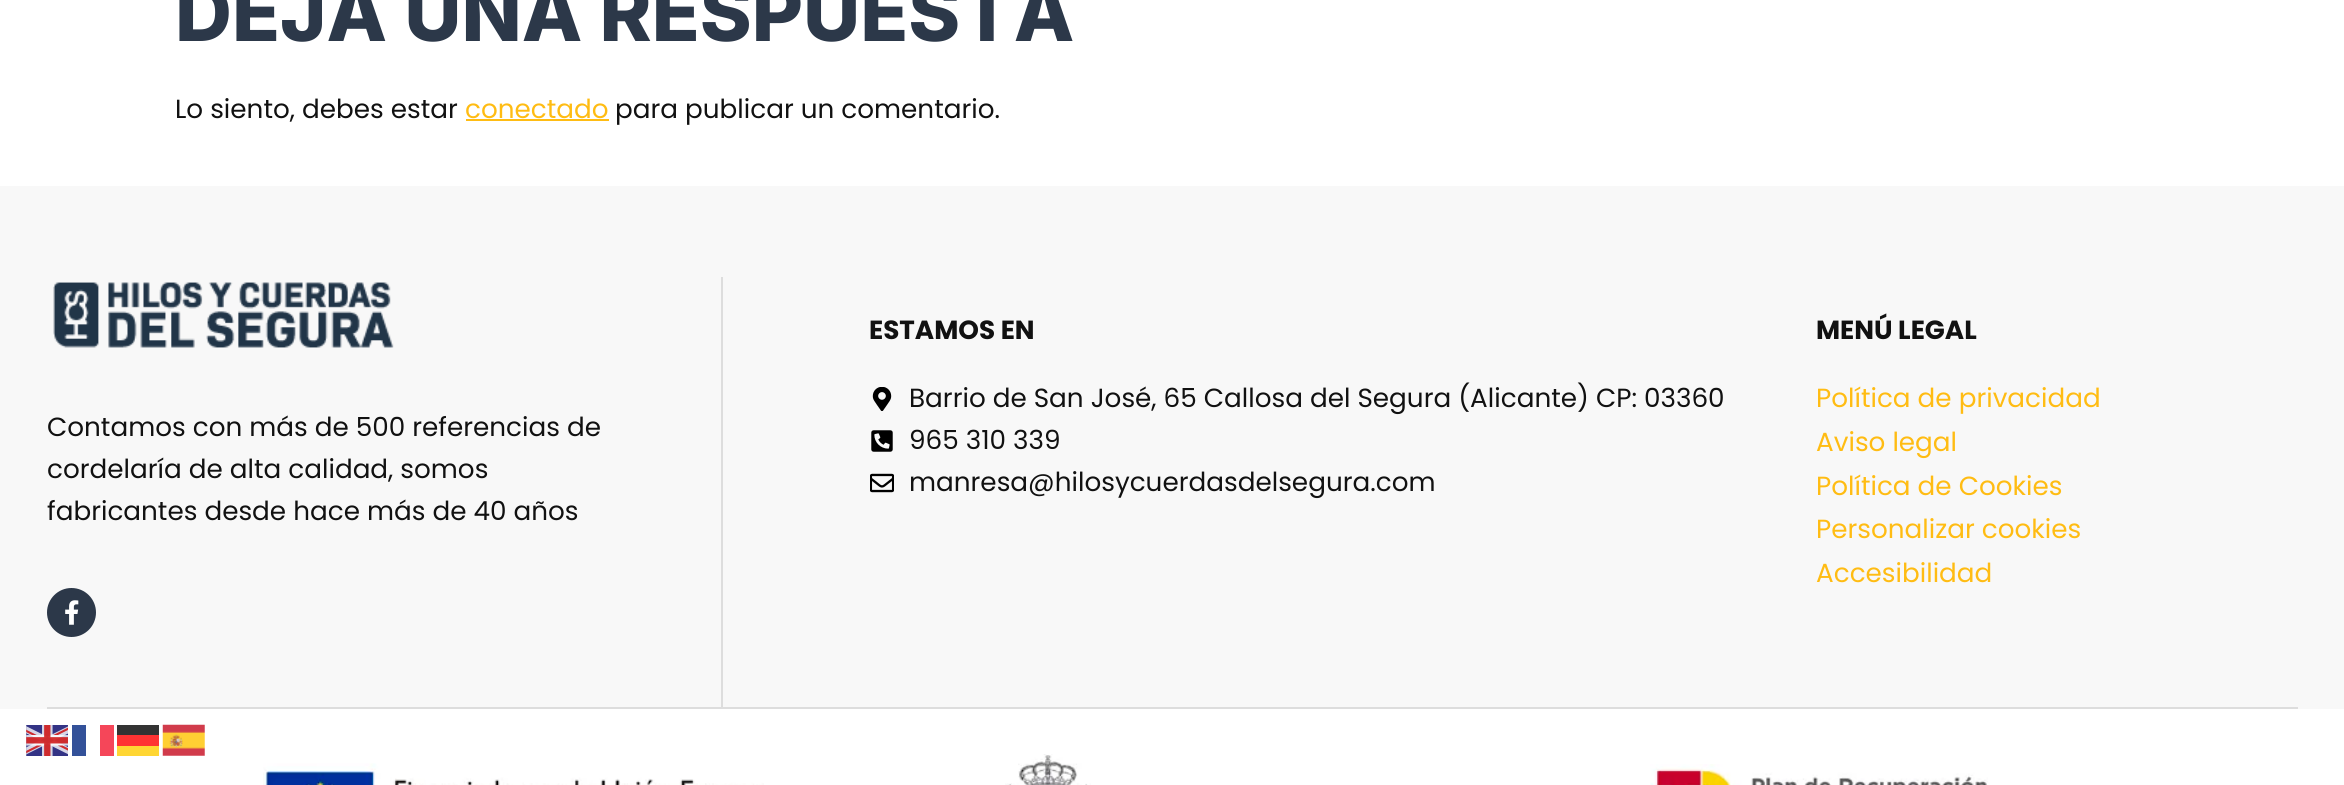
import math
import cairocffi as cairo

surface = cairo.ImageSurface(cairo.FORMAT_RGB24, 2344, 785)
cr = cairo.Context(surface)
options = cairo.FontOptions()
options.set_hint_metrics(cairo.HINT_METRICS_OFF)
options.set_hint_style(cairo.HINT_STYLE_NONE)
cr.set_font_options(options)
cr.set_miter_limit(4)


def use_color(code):
    cr.set_source_rgb(*(v / 255 for v in bytes.fromhex(code[-6:])))


def picture(path, x, y, w, h):
    cr.save()
    cr.set_source_surface(cairo.ImageSurface.create_from_png(path), x, y)
    cr.rectangle(x, y, w, h)
    cr.fill()
    cr.restore()


use_color("#ffffff")
cr.paint()
cr.select_font_face("Inter ExtraBold")
cr.set_font_size(78.75)
use_color("#2c3849")
cr.move_to(175, 41)
cr.show_text("DEJA UNA RESPUESTA")
cr.select_font_face("Poppins")
cr.set_font_size(26.25)
use_color("#111111")
cr.move_to(175, 118)
cr.show_text("Lo siento, debes estar")
use_color("#ffbc13")
cr.move_to(465, 118)
cr.show_text("conectado")
cr.rectangle(466, 119, 143, 2)
cr.fill()
use_color("#111111")
cr.move_to(615, 118)
cr.show_text("para publicar un comentario.")
use_color("#f8f8f8")
cr.rectangle(0, 186, 2344, 523)
cr.fill()
use_color("#dddddd")
cr.rectangle(721, 277, 2, 432)
cr.fill()
cr.rectangle(47, 707, 2251, 2)
cr.fill()
picture("img1.png", 53, 282, 341, 66)
use_color("#111111")
cr.move_to(47, 436)
cr.show_text("Contamos con más de 500 referencias de")
cr.move_to(47, 478)
cr.show_text("cordelaría de alta calidad, somos")
cr.move_to(47, 520)
cr.show_text("fabricantes desde hace más de 40 años")
use_color("#2c3849")
cr.new_path()
cr.arc(71.5, 612.5, 24.5, 0, 2 * math.pi)
cr.fill()
picture("img2.png", 65, 600, 14, 25)
cr.select_font_face("Poppins", cairo.FONT_SLANT_NORMAL, cairo.FONT_WEIGHT_BOLD)
use_color("#111111")
cr.move_to(869, 339)
cr.show_text("ESTAMOS EN")
picture("img3.png", 872, 387, 20, 24)
cr.select_font_face("Poppins")
cr.move_to(909, 407)
cr.show_text("Barrio de San José, 65 Callosa del Segura (Alicante) CP: 03360")
picture("img4.png", 871, 430, 22, 22)
cr.move_to(909, 449)
cr.show_text("965 310 339")
picture("img5.png", 870, 473, 24, 20)
cr.move_to(909, 491)
cr.show_text("manresa@hilosycuerdasdelsegura.com")
cr.select_font_face("Poppins", cairo.FONT_SLANT_NORMAL, cairo.FONT_WEIGHT_BOLD)
cr.move_to(1816, 339)
cr.show_text("MENÚ LEGAL")
cr.select_font_face("Poppins")
use_color("#ffbc13")
cr.move_to(1816, 407)
cr.show_text("Política de privacidad")
cr.move_to(1816, 451)
cr.show_text("Aviso legal")
cr.move_to(1816, 495)
cr.show_text("Política de Cookies")
cr.move_to(1816, 538)
cr.show_text("Personalizar cookies")
cr.move_to(1816, 582)
cr.show_text("Accesibilidad")
picture("img6.png", 263, 763, 501, 22)
picture("img7.png", 1005, 754, 86, 31)
picture("img8.png", 1650, 764, 338, 21)
picture("img9.png", 26, 725, 42, 31)
use_color("#335199")
cr.rectangle(72, 725, 14, 31)
cr.fill()
use_color("#f54659")
cr.rectangle(100, 725, 14, 31)
cr.fill()
use_color("#333333")
cr.rectangle(117, 725, 42, 10)
cr.fill()
picture("img10.png", 162, 724, 43, 32)
use_color("#ff3333")
cr.rectangle(117, 735, 42, 11)
cr.fill()
use_color("#ffd633")
cr.rectangle(117, 746, 42, 10)
cr.fill()
surface.write_to_png("result.png")
